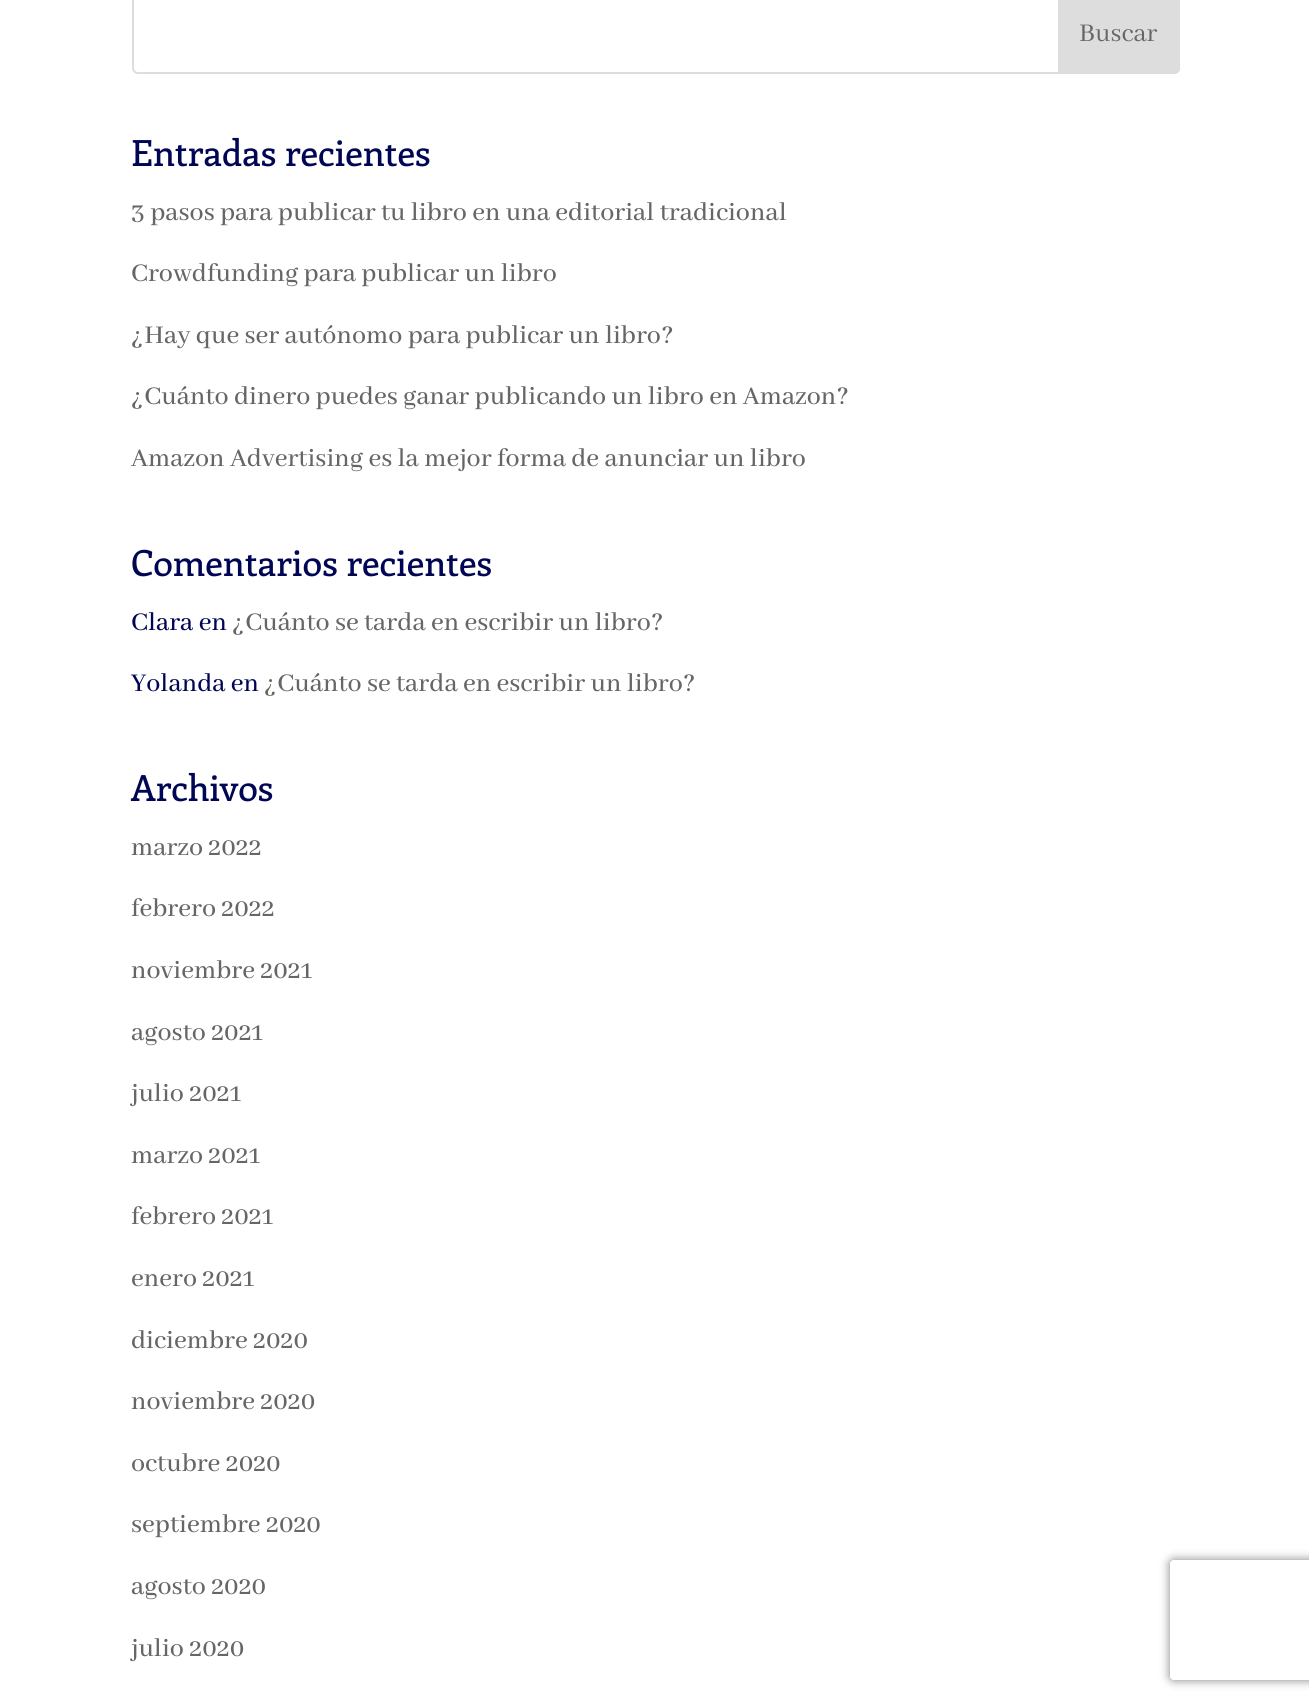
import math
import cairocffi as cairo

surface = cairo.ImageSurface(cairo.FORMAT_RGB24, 1309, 1707)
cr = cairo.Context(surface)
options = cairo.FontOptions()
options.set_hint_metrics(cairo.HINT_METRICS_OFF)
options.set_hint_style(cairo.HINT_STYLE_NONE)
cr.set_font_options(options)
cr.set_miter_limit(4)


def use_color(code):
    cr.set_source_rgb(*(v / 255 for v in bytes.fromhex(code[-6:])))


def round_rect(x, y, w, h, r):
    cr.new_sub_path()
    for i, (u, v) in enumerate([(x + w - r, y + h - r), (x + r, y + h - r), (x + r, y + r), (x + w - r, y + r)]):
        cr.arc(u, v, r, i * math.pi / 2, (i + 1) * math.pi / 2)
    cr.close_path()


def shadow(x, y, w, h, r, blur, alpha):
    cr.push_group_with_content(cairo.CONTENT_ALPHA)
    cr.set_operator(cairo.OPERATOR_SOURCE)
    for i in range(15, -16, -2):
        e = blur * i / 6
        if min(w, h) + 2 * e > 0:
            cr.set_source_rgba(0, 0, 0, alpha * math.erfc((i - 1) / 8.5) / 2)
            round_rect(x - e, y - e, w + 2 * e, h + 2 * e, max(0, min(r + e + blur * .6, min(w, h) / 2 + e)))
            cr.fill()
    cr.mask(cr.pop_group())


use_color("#ffffff")
cr.paint()
round_rect(133, -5, 1046, 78, 5)
use_color("#dddddd")
cr.stroke()
cr.new_path()
cr.move_to(1059, -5)
cr.line_to(1174, -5)
cr.curve_to(1177, -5, 1179, -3, 1179, 0)
cr.line_to(1179, 68)
cr.curve_to(1179, 71, 1177, 73, 1174, 73)
cr.line_to(1059, 73)
cr.close_path()
cr.fill_preserve()
cr.stroke()
cr.select_font_face("Abhaya Libre")
cr.set_font_size(28)
use_color("#666666")
cr.move_to(1079, 41)
cr.show_text("Buscar")
cr.select_font_face("Enriqueta Medium")
cr.set_font_size(36)
use_color("#000654")
cr.move_to(131, 166)
cr.show_text("Entradas recientes")
cr.select_font_face("Abhaya Libre Medium Medium")
cr.set_font_size(28)
use_color("#666666")
cr.move_to(131, 220)
cr.show_text("3 pasos para publicar tu libro en una editorial tradicional")
cr.move_to(131, 281)
cr.show_text("Crowdfunding para publicar un libro")
cr.move_to(131, 343)
cr.show_text("¿Hay que ser autónomo para publicar un libro?")
cr.move_to(131, 404)
cr.show_text("¿Cuánto dinero puedes ganar publicando un libro en Amazon?")
cr.move_to(131, 466)
cr.show_text("Amazon Advertising es la mejor forma de anunciar un libro")
cr.select_font_face("Enriqueta Medium")
cr.set_font_size(36)
use_color("#000654")
cr.move_to(131, 576)
cr.show_text("Comentarios recientes")
cr.select_font_face("Abhaya Libre Medium Medium")
cr.set_font_size(28)
cr.move_to(131, 630)
cr.show_text("Clara en")
use_color("#666666")
cr.move_to(232, 630)
cr.show_text("¿Cuánto se tarda en escribir un libro?")
use_color("#000654")
cr.move_to(131, 691)
cr.show_text("Yolanda en")
use_color("#666666")
cr.move_to(264, 691)
cr.show_text("¿Cuánto se tarda en escribir un libro?")
cr.select_font_face("Enriqueta Medium")
cr.set_font_size(36)
use_color("#000654")
cr.move_to(131, 801)
cr.show_text("Archivos")
cr.select_font_face("Abhaya Libre Medium Medium")
cr.set_font_size(28)
use_color("#666666")
cr.move_to(131, 855)
cr.show_text("marzo 2022")
cr.move_to(131, 916)
cr.show_text("febrero 2022")
cr.move_to(131, 978)
cr.show_text("noviembre 2021")
cr.move_to(131, 1040)
cr.show_text("agosto 2021")
cr.move_to(131, 1101)
cr.show_text("julio 2021")
cr.move_to(131, 1163)
cr.show_text("marzo 2021")
cr.move_to(131, 1224)
cr.show_text("febrero 2021")
cr.move_to(131, 1286)
cr.show_text("enero 2021")
cr.move_to(131, 1348)
cr.show_text("diciembre 2020")
cr.move_to(131, 1409)
cr.show_text("noviembre 2020")
cr.move_to(131, 1471)
cr.show_text("octubre 2020")
cr.move_to(131, 1532)
cr.show_text("septiembre 2020")
cr.move_to(131, 1594)
cr.show_text("agosto 2020")
cr.move_to(131, 1656)
cr.show_text("julio 2020")
cr.save()
cr.set_fill_rule(cairo.FILL_RULE_EVEN_ODD)
cr.new_path()
cr.move_to(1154, 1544)
cr.line_to(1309, 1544)
cr.line_to(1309, 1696)
cr.line_to(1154, 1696)
cr.close_path()
cr.move_to(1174, 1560)
cr.line_to(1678, 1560)
cr.curve_to(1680, 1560, 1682, 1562, 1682, 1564)
cr.line_to(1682, 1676)
cr.curve_to(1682, 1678, 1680, 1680, 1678, 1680)
cr.line_to(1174, 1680)
cr.curve_to(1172, 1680, 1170, 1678, 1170, 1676)
cr.line_to(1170, 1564)
cr.curve_to(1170, 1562, 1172, 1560, 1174, 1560)
cr.close_path()
cr.clip()
use_color("#808080")
shadow(1170, 1560, 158, 120, 4, 5, 1)
cr.restore()
surface.write_to_png("result.png")
